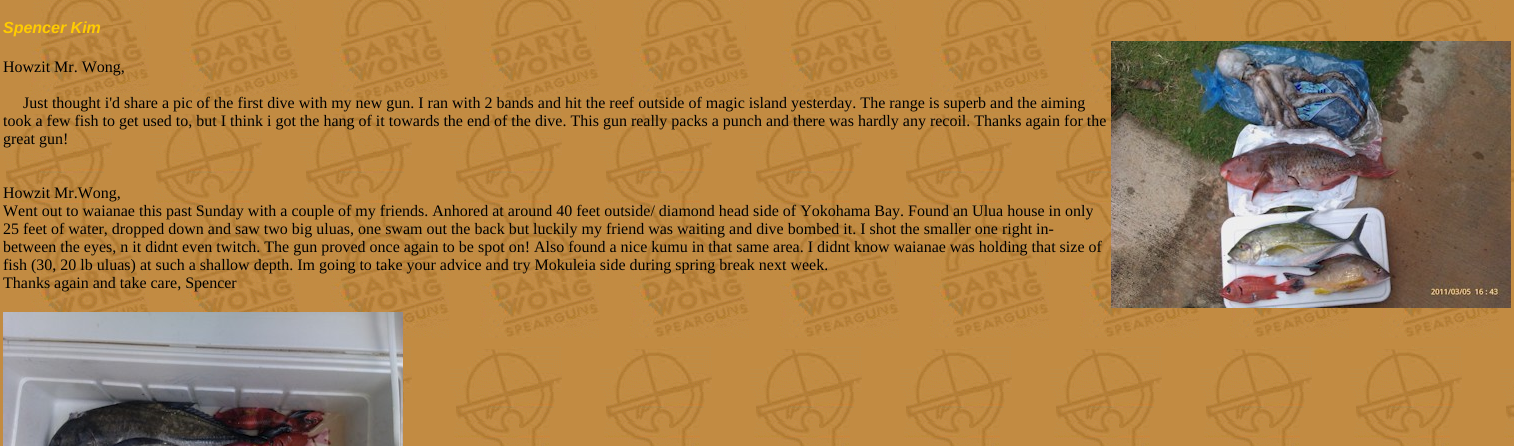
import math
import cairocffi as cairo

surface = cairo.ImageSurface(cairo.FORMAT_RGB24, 1514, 446)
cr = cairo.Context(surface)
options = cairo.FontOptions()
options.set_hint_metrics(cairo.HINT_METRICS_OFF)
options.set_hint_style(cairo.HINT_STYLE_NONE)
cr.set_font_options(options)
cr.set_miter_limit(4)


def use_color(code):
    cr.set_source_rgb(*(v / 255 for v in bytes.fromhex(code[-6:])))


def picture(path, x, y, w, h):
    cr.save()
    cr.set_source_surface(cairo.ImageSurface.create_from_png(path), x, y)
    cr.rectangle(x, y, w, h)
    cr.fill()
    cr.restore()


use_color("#ffffff")
cr.paint()
picture("img1.png", 0, 0, 1514, 446)
cr.select_font_face("Liberation Sans", cairo.FONT_SLANT_ITALIC, cairo.FONT_WEIGHT_BOLD)
cr.set_font_size(16)
use_color("#ffcc00")
cr.move_to(3, 33)
cr.show_text("Spencer Kim")
cr.select_font_face("Liberation Serif")
use_color("#000000")
cr.move_to(3, 72)
cr.show_text("Howzit Mr. Wong,")
cr.move_to(23, 108)
cr.show_text("Just thought i'd share a pic of the first dive with my new gun. I ran with 2 bands and hit the reef outside of magic island yesterday. The range is superb and the aiming")
cr.move_to(3, 126)
cr.show_text("took a few fish to get used to, but I think i got the hang of it towards the end of the dive. This gun really packs a punch and there was hardly any recoil. Thanks again for the")
cr.move_to(3, 144)
cr.show_text("great gun!")
cr.move_to(3, 198)
cr.show_text("Howzit Mr.Wong,")
cr.move_to(3, 216)
cr.show_text("Went out to waianae this past Sunday with a couple of my friends. Anhored at around 40 feet outside/ diamond head side of Yokohama Bay. Found an Ulua house in only")
cr.move_to(3, 234)
cr.show_text("25 feet of water, dropped down and saw two big uluas, one swam out the back but luckily my friend was waiting and dive bombed it. I shot the smaller one right in-")
cr.move_to(3, 252)
cr.show_text("between the eyes, n it didnt even twitch. The gun proved once again to be spot on! Also found a nice kumu in that same area. I didnt know waianae was holding that size of")
cr.move_to(3, 270)
cr.show_text("fish (30, 20 lb uluas) at such a shallow depth. Im going to take your advice and try Mokuleia side during spring break next week.")
cr.move_to(3, 288)
cr.show_text("Thanks again and take care, Spencer")
picture("img2.png", 1111, 41, 400, 267)
picture("img3.png", 3, 312, 400, 134)
surface.write_to_png("result.png")
